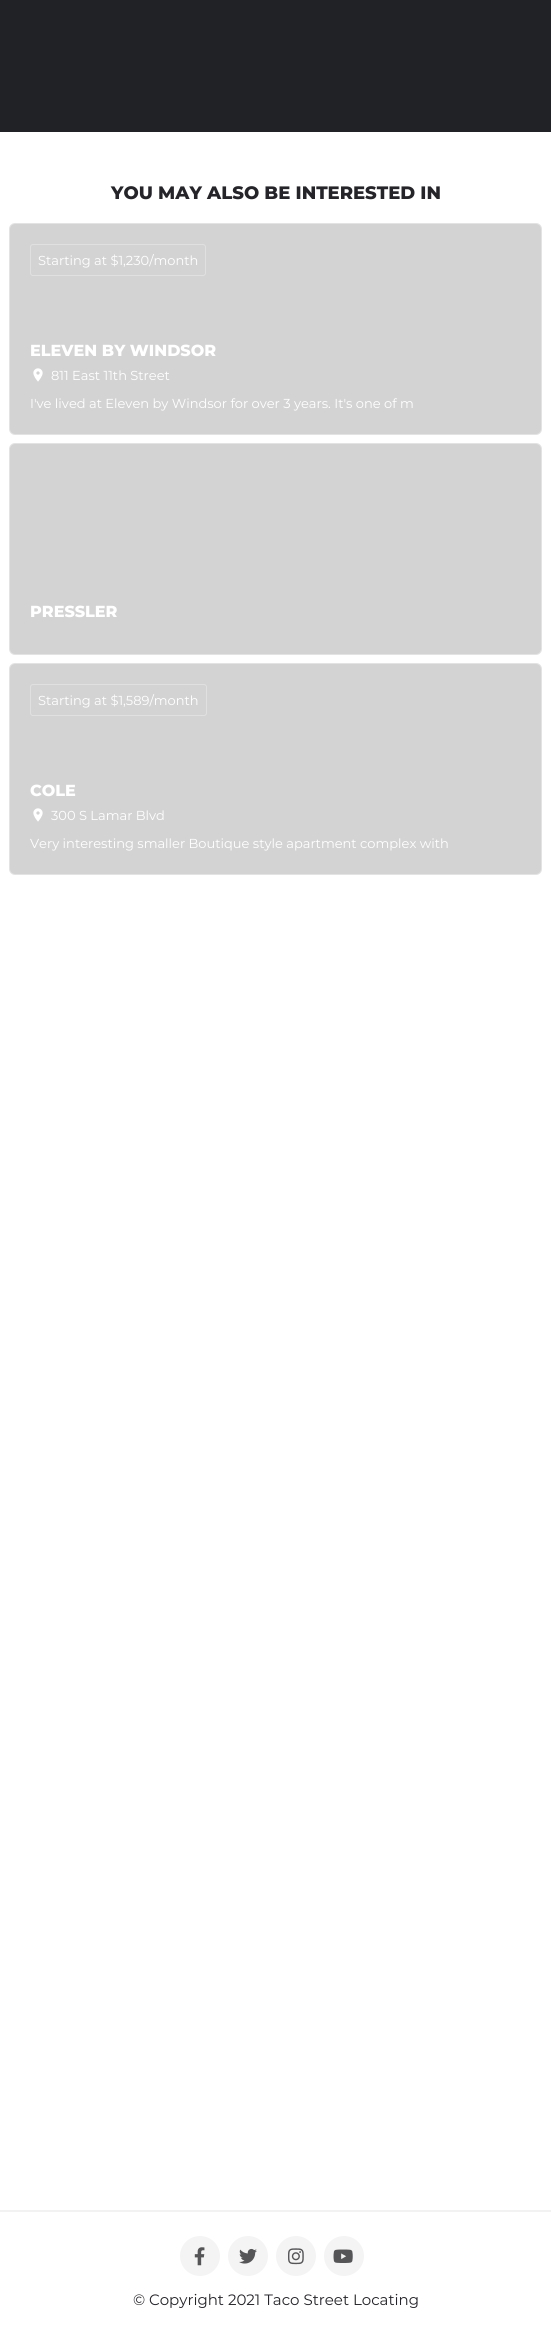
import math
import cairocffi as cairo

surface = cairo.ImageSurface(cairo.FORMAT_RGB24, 551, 2338)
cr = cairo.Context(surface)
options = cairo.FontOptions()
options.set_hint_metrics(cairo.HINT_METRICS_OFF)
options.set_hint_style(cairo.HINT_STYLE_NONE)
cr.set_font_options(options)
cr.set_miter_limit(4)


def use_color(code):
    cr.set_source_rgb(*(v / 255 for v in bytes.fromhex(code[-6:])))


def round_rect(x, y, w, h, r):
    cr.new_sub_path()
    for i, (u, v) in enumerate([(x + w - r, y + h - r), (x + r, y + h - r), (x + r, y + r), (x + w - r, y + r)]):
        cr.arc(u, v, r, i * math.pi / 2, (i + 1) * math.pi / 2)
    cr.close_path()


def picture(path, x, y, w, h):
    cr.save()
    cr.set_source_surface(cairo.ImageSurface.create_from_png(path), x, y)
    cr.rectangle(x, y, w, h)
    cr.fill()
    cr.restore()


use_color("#ffffff")
cr.paint()
use_color("#212226")
cr.rectangle(0, 0, 551, 132)
cr.fill()
cr.select_font_face("Montserrat ExtraBold")
cr.set_font_size(18)
use_color("#242429")
cr.move_to(111, 199)
cr.show_text("YOU MAY ALSO BE INTERESTED IN")
round_rect(9.5, 223.5, 532, 211, 5.5)
use_color("#e3e3e3")
cr.set_line_width(1)
cr.stroke()
cr.set_source_rgba(0.141, 0.141, 0.161, 0.2)
round_rect(10, 224, 531, 210, 5)
cr.fill()
round_rect(30.5, 244.5, 175, 31, 2.5)
use_color("#e0e0e1")
cr.stroke()
cr.select_font_face("Montserrat")
cr.set_font_size(13)
use_color("#ffffff")
cr.move_to(38, 265)
cr.show_text("Starting at $1,230/month")
cr.select_font_face("Montserrat ExtraBold")
cr.set_font_size(16)
cr.move_to(30, 356)
cr.show_text("ELEVEN BY WINDSOR")
picture("img1.png", 33, 368, 10, 14)
cr.select_font_face("Montserrat")
cr.set_font_size(13)
cr.move_to(51, 380)
cr.show_text("811 East 11th Street")
cr.move_to(30, 408)
cr.show_text("I've lived at Eleven by Windsor for over 3 years. It's one of m")
round_rect(9.5, 443.5, 532, 211, 5.5)
use_color("#e3e3e3")
cr.stroke()
cr.set_source_rgba(0.141, 0.141, 0.161, 0.2)
round_rect(10, 444, 531, 210, 5)
cr.fill()
cr.select_font_face("Montserrat ExtraBold")
cr.set_font_size(16)
use_color("#ffffff")
cr.move_to(30, 617)
cr.show_text("PRESSLER")
round_rect(9.5, 663.5, 532, 211, 5.5)
use_color("#e3e3e3")
cr.stroke()
cr.set_source_rgba(0.141, 0.141, 0.161, 0.2)
round_rect(10, 664, 531, 210, 5)
cr.fill()
round_rect(30.5, 684.5, 176, 31, 2.5)
use_color("#e0e0e1")
cr.stroke()
cr.select_font_face("Montserrat")
cr.set_font_size(13)
use_color("#ffffff")
cr.move_to(38, 705)
cr.show_text("Starting at $1,589/month")
cr.select_font_face("Montserrat ExtraBold")
cr.set_font_size(16)
cr.move_to(30, 796)
cr.show_text("COLE")
picture("img1.png", 33, 808, 10, 14)
cr.select_font_face("Montserrat")
cr.set_font_size(13)
cr.move_to(51, 820)
cr.show_text("300 S Lamar Blvd")
cr.move_to(30, 848)
cr.show_text("Very interesting smaller Boutique style apartment complex with")
use_color("#f2f2f2")
cr.rectangle(0, 2210, 551, 2)
cr.fill()
use_color("#f4f4f4")
cr.arc(200, 2256, 20, 0, 2 * math.pi)
cr.fill()
picture("img2.png", 194, 2247, 11, 19)
cr.arc(248, 2256, 20, 0, 2 * math.pi)
cr.fill()
picture("img3.png", 239, 2248, 18, 16)
cr.arc(296, 2256, 20, 0, 2 * math.pi)
cr.fill()
picture("img4.png", 288, 2248, 16, 17)
cr.arc(344, 2256, 20, 0, 2 * math.pi)
cr.fill()
picture("img5.png", 333, 2249, 20, 14)
cr.set_font_size(15)
use_color("#242429")
cr.move_to(133, 2305)
cr.show_text("© Copyright 2021 Taco Street Locating")
surface.write_to_png("result.png")
